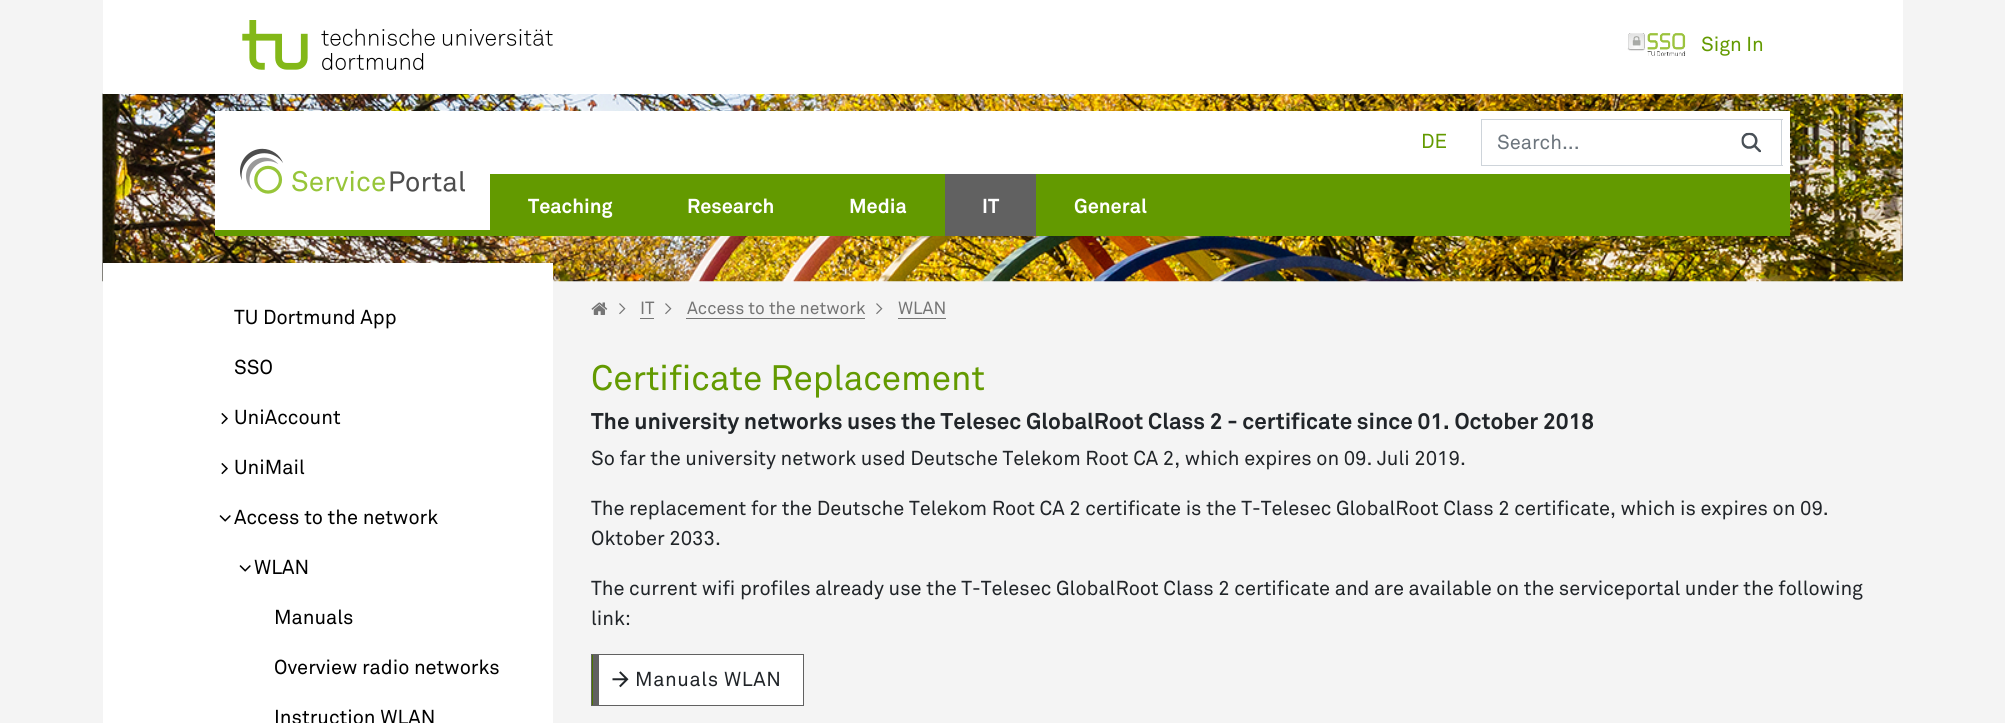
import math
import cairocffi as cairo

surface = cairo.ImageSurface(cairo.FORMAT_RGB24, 2005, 723)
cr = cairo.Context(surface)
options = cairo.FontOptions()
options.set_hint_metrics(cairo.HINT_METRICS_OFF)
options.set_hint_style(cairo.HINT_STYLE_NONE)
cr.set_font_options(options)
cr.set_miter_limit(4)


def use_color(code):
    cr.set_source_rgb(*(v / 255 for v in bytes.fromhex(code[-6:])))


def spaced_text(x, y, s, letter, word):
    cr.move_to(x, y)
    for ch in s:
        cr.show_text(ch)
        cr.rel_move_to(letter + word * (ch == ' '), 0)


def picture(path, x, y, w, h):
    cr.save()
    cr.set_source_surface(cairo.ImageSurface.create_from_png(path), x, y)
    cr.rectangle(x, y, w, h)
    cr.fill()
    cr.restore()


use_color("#f4f4f4")
cr.paint()
use_color("#3b3b3b")
cr.rectangle(1902, 94, 1, 187)
cr.fill()
picture("img3.png", 102, 93, 1801, 189)
use_color("#ffffff")
cr.rectangle(103, 0, 1800, 94)
cr.fill()
picture("img1.png", 242, 20, 311, 50)
picture("img2.png", 1627, 33, 59, 23)
cr.select_font_face("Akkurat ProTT")
cr.set_font_size(20)
use_color("#639a00")
cr.move_to(1701, 51)
cr.show_text("Sign In")
use_color("#ffffff")
cr.rectangle(215, 111, 1575, 119)
cr.fill()
use_color("#639a00")
cr.rectangle(215, 230, 275, 6)
cr.fill()
picture("img4.png", 240, 148, 225, 46)
cr.move_to(1421, 148)
cr.show_text("DE")
use_color("#ced4da")
cr.rectangle(1481, 119, 302, 1)
cr.fill()
cr.rectangle(1481, 165, 240, 1)
cr.fill()
cr.rectangle(1481, 119, 1, 47)
cr.fill()
use_color("#6c757d")
cr.move_to(1497, 149)
cr.show_text("Search...")
use_color("#ced4da")
cr.rectangle(1781, 119, 1, 47)
cr.fill()
cr.rectangle(1721, 165, 62, 1)
cr.fill()
picture("img5.png", 1741, 132, 20, 21)
use_color("#639a00")
cr.rectangle(490, 174, 1300, 62)
cr.fill()
cr.select_font_face("Akkurat ProTT", cairo.FONT_SLANT_NORMAL, cairo.FONT_WEIGHT_BOLD)
use_color("#ffffff")
cr.move_to(528, 213)
cr.show_text("Teaching")
cr.move_to(687, 213)
cr.show_text("Research")
cr.move_to(849, 213)
cr.show_text("Media")
use_color("#616161")
cr.rectangle(945, 174, 91, 62)
cr.fill()
use_color("#ffffff")
cr.move_to(982, 213)
cr.show_text("IT")
cr.move_to(1074, 213)
cr.show_text("General")
cr.rectangle(103, 263, 450, 460)
cr.fill()
cr.select_font_face("Akkurat ProTT")
use_color("#000000")
cr.move_to(234, 324)
cr.show_text("TU Dortmund App")
cr.move_to(234, 374)
cr.show_text("SSO")
picture("img6.png", 221, 413, 7, 12)
cr.move_to(234, 424)
cr.show_text("UniAccount")
picture("img6.png", 221, 463, 7, 12)
cr.move_to(234, 474)
cr.show_text("UniMail")
picture("img7.png", 219, 515, 12, 7)
cr.move_to(234, 524)
cr.show_text("Access to the network")
picture("img7.png", 239, 565, 12, 7)
cr.move_to(254, 574)
cr.show_text("WLAN")
cr.move_to(274, 624)
cr.show_text("Manuals")
cr.move_to(274, 674)
cr.show_text("Overview radio networks")
cr.move_to(274, 724)
cr.show_text("Instruction WLAN")
picture("img8.png", 591, 302, 17, 13)
cr.set_font_size(17.5)
use_color("#757575")
cr.move_to(618, 314)
cr.show_text(">")
cr.move_to(640, 314)
cr.show_text("IT")
cr.rectangle(640, 318, 14, 1)
cr.fill()
cr.move_to(664, 314)
cr.show_text(">")
cr.move_to(687, 314)
cr.show_text("Access to the network")
cr.rectangle(686, 318, 179, 1)
cr.fill()
cr.move_to(875, 314)
cr.show_text(">")
cr.move_to(898, 314)
cr.show_text("WLAN")
cr.rectangle(898, 318, 48, 1)
cr.fill()
cr.set_font_size(35)
use_color("#639a00")
cr.move_to(591, 390)
cr.show_text("Certificate Replacement")
cr.select_font_face("Akkurat ProTT", cairo.FONT_SLANT_NORMAL, cairo.FONT_WEIGHT_BOLD)
cr.set_font_size(22.5)
use_color("#212529")
cr.move_to(591, 429)
cr.show_text("The university networks uses the Telesec GlobalRoot Class 2 - certificate since 01. October 2018")
cr.select_font_face("Akkurat ProTT")
cr.set_font_size(20)
cr.move_to(591, 465)
cr.show_text("So far the university network used Deutsche Telekom Root CA 2, which expires on 09. Juli 2019.")
cr.move_to(591, 515)
cr.show_text("The replacement for the Deutsche Telekom Root CA 2 certificate is the T-Telesec GlobalRoot Class 2 certificate, which is expires on 09.")
cr.move_to(591, 545)
cr.show_text("Oktober 2033.")
cr.move_to(591, 595)
cr.show_text("The current wifi profiles already use the T-Telesec GlobalRoot Class 2 certificate and are available on the serviceportal under the following")
cr.move_to(591, 625)
cr.show_text("link:")
use_color("#ffffff")
cr.rectangle(599, 655, 204, 50)
cr.fill()
use_color("#4a7400")
cr.rectangle(592, 654, 1, 52)
cr.fill()
use_color("#616161")
cr.rectangle(593, 655, 6, 50)
cr.fill()
cr.rectangle(591.5, 654.5, 212, 51)
cr.set_line_width(1)
cr.stroke()
picture("img9.png", 612, 671, 17, 17)
use_color("#212529")
spaced_text(635, 686, "Manuals WLAN", 0.6, 0)
surface.write_to_png("result.png")
